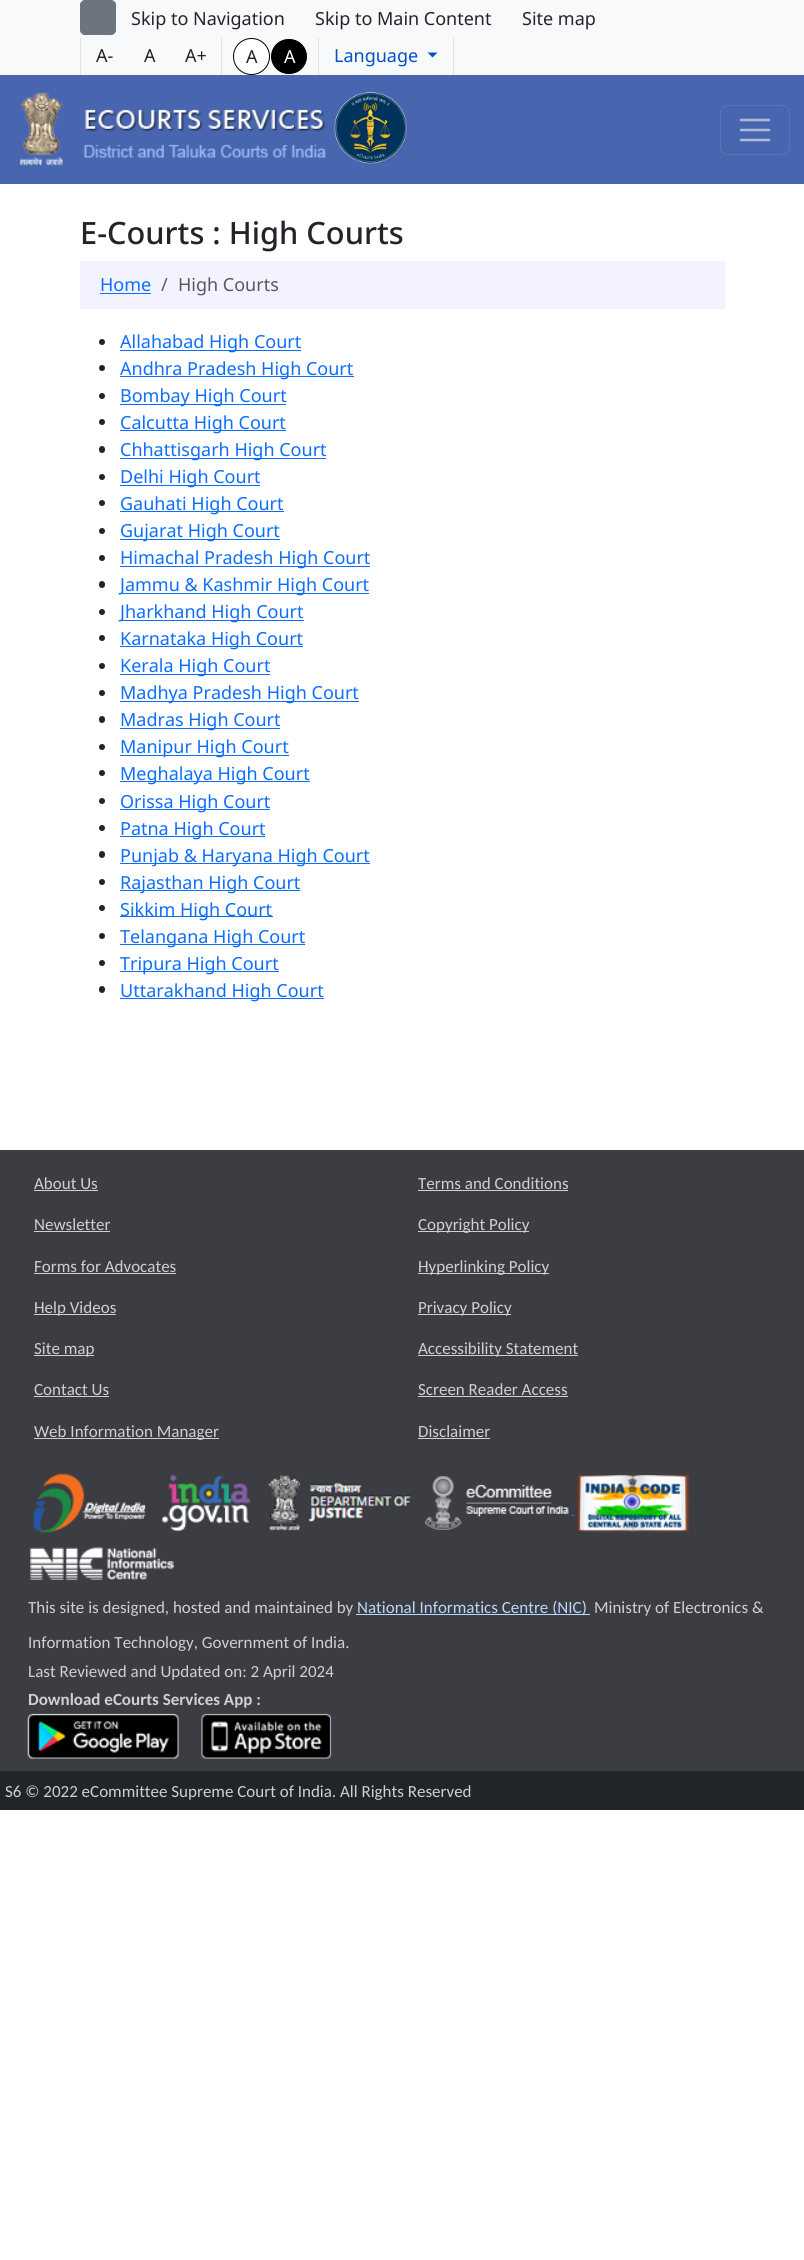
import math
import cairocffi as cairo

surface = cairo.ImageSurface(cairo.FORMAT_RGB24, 804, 2260)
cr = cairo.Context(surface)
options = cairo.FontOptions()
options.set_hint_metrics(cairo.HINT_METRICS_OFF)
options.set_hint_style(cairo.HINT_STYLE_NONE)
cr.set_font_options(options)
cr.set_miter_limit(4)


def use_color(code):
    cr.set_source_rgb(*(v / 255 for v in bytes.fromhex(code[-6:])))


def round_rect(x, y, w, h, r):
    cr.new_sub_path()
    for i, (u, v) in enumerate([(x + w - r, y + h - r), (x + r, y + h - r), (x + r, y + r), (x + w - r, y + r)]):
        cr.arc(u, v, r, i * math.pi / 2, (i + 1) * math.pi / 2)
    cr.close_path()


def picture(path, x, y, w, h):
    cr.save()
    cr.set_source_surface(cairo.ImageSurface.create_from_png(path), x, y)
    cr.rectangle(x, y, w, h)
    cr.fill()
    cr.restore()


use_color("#ffffff")
cr.paint()
use_color("#f8f9fa")
cr.rectangle(0, 0, 804, 75)
cr.fill()
use_color("#6c757d")
round_rect(80.5, 0.5, 35, 34, 4.5)
cr.fill_preserve()
cr.set_line_width(1)
cr.stroke()
cr.select_font_face("Noto Sans")
cr.set_font_size(18)
use_color("#212529")
cr.move_to(131, 25)
cr.show_text("Skip to Navigation")
cr.move_to(315, 25)
cr.show_text("Skip to Main Content")
cr.move_to(522, 25)
cr.show_text("Site map")
use_color("#dee2e6")
cr.rectangle(80, 38, 1, 37)
cr.fill()
use_color("#212529")
cr.move_to(96, 62)
cr.show_text("A-")
cr.move_to(144, 62)
cr.show_text("A")
cr.move_to(185, 62)
cr.show_text("A+")
use_color("#dee2e6")
cr.rectangle(221, 38, 1, 37)
cr.fill()
use_color("#ffffff")
cr.arc(251.5, 56.5, 18, 0, 2 * math.pi)
cr.fill_preserve()
use_color("#000000")
cr.stroke()
use_color("#212529")
cr.move_to(246, 63)
cr.show_text("A")
use_color("#000000")
round_rect(270.5, 38.5, 37, 36, 18)
cr.fill_preserve()
use_color("#ffffff")
cr.stroke()
cr.move_to(284, 63)
cr.show_text("A")
use_color("#dee2e6")
cr.rectangle(453, 38, 1, 37)
cr.fill()
cr.rectangle(318, 38, 1, 37)
cr.fill()
use_color("#0250c5")
cr.move_to(334, 62)
cr.show_text("Language")
cr.new_path()
cr.move_to(427.5, 52.5)
cr.line_to(437.5, 52.5)
cr.line_to(432.5, 57.5)
cr.close_path()
cr.fill()
use_color("#4866af")
cr.rectangle(0, 75, 804, 109)
cr.fill()
picture("img1.png", 19, 92, 307, 74)
picture("img2.png", 334, 92, 74, 73)
round_rect(720.5, 105.5, 69, 49, 7.5)
use_color("#5a75b7")
cr.stroke()
cr.new_path()
cr.move_to(741, 120)
cr.line_to(769, 120)
cr.move_to(741, 130)
cr.line_to(769, 130)
cr.move_to(741, 140)
cr.line_to(769, 140)
use_color("#adbadb")
cr.set_line_width(2.5)
cr.set_line_cap(cairo.LINE_CAP_ROUND)
cr.stroke()
cr.select_font_face("Noto Sans Medium")
cr.set_font_size(30.75)
use_color("#212529")
cr.move_to(80, 244)
cr.show_text("E-Courts : High Courts")
use_color("#f3f3ff")
cr.rectangle(80, 261, 645, 48)
cr.fill()
cr.select_font_face("Noto Sans")
cr.set_font_size(18)
use_color("#0d6efd")
cr.move_to(100, 291)
cr.show_text("Home")
cr.rectangle(100, 293, 51, 1)
cr.fill()
use_color("#56595f")
cr.move_to(161, 291)
cr.show_text("/")
cr.move_to(178, 291)
cr.show_text("High Courts")
use_color("#212529")
cr.new_path()
cr.arc(102, 342, 3, 0, 2 * math.pi)
cr.fill()
use_color("#0d6efd")
cr.rectangle(120, 350, 181, 1)
cr.fill()
cr.move_to(120, 348)
cr.show_text("Allahabad High Court")
use_color("#212529")
cr.new_path()
cr.arc(102, 368, 3, 0, 2 * math.pi)
cr.fill()
use_color("#0d6efd")
cr.rectangle(120, 376, 234, 1)
cr.fill()
cr.move_to(120, 375)
cr.show_text("Andhra Pradesh High Court")
use_color("#212529")
cr.new_path()
cr.arc(102, 396, 3, 0, 2 * math.pi)
cr.fill()
use_color("#0d6efd")
cr.rectangle(120, 404, 166, 1)
cr.fill()
cr.move_to(120, 402)
cr.show_text("Bombay High Court")
use_color("#212529")
cr.new_path()
cr.arc(102, 422, 3, 0, 2 * math.pi)
cr.fill()
use_color("#0d6efd")
cr.rectangle(120, 430, 166, 1)
cr.fill()
cr.move_to(120, 429)
cr.show_text("Calcutta High Court")
use_color("#212529")
round_rect(99, 446, 6, 7, 3)
cr.fill()
use_color("#0d6efd")
cr.rectangle(120, 458, 206, 1)
cr.fill()
cr.move_to(120, 456)
cr.show_text("Chhattisgarh High Court")
use_color("#212529")
cr.new_path()
cr.arc(102, 477, 3, 0, 2 * math.pi)
cr.fill()
use_color("#0d6efd")
cr.rectangle(120, 485, 140, 1)
cr.fill()
cr.move_to(120, 483)
cr.show_text("Delhi High Court")
use_color("#212529")
cr.new_path()
cr.arc(102, 503, 3, 0, 2 * math.pi)
cr.fill()
use_color("#0d6efd")
cr.rectangle(120, 511, 164, 1)
cr.fill()
cr.move_to(120, 510)
cr.show_text("Gauhati High Court")
use_color("#212529")
cr.new_path()
cr.arc(102, 531, 3, 0, 2 * math.pi)
cr.fill()
use_color("#0d6efd")
cr.rectangle(120, 539, 160, 1)
cr.fill()
cr.move_to(120, 537)
cr.show_text("Gujarat High Court")
use_color("#212529")
cr.new_path()
cr.arc(102, 558, 3, 0, 2 * math.pi)
cr.fill()
use_color("#0d6efd")
cr.rectangle(120, 566, 250, 1)
cr.fill()
cr.move_to(120, 564)
cr.show_text("Himachal Pradesh High Court")
use_color("#212529")
round_rect(99, 581, 6, 7, 3)
cr.fill()
use_color("#0d6efd")
cr.rectangle(120, 593, 249, 1)
cr.fill()
cr.move_to(120, 591)
cr.show_text("Jammu & Kashmir High Court")
use_color("#212529")
cr.new_path()
cr.arc(102, 612, 3, 0, 2 * math.pi)
cr.fill()
use_color("#0d6efd")
cr.rectangle(120, 620, 184, 1)
cr.fill()
cr.move_to(120, 618)
cr.show_text("Jharkhand High Court")
use_color("#212529")
cr.new_path()
cr.arc(102, 638, 3, 0, 2 * math.pi)
cr.fill()
use_color("#0d6efd")
cr.rectangle(120, 646, 183, 1)
cr.fill()
cr.move_to(120, 645)
cr.show_text("Karnataka High Court")
use_color("#212529")
cr.new_path()
cr.arc(102, 666, 3, 0, 2 * math.pi)
cr.fill()
use_color("#0d6efd")
cr.rectangle(120, 674, 150, 1)
cr.fill()
cr.move_to(120, 672)
cr.show_text("Kerala High Court")
use_color("#212529")
cr.new_path()
cr.arc(102, 693, 3, 0, 2 * math.pi)
cr.fill()
use_color("#0d6efd")
cr.rectangle(120, 701, 239, 1)
cr.fill()
cr.move_to(120, 699)
cr.show_text("Madhya Pradesh High Court")
use_color("#212529")
round_rect(99, 716, 6, 7, 3)
cr.fill()
use_color("#0d6efd")
cr.rectangle(120, 728, 160, 1)
cr.fill()
cr.move_to(120, 726)
cr.show_text("Madras High Court")
use_color("#212529")
cr.new_path()
cr.arc(102, 747, 3, 0, 2 * math.pi)
cr.fill()
use_color("#0d6efd")
cr.rectangle(120, 755, 169, 1)
cr.fill()
cr.move_to(120, 753)
cr.show_text("Manipur High Court")
use_color("#212529")
cr.new_path()
cr.arc(102, 773, 3, 0, 2 * math.pi)
cr.fill()
use_color("#0d6efd")
cr.rectangle(120, 781, 190, 1)
cr.fill()
cr.move_to(120, 780)
cr.show_text("Meghalaya High Court")
use_color("#212529")
cr.new_path()
cr.arc(102, 801, 3, 0, 2 * math.pi)
cr.fill()
use_color("#0d6efd")
cr.rectangle(120, 809, 150, 1)
cr.fill()
cr.move_to(120, 808)
cr.show_text("Orissa High Court")
use_color("#212529")
cr.new_path()
cr.arc(102, 828, 3, 0, 2 * math.pi)
cr.fill()
use_color("#0d6efd")
cr.rectangle(120, 836, 145, 1)
cr.fill()
cr.move_to(120, 835)
cr.show_text("Patna High Court")
use_color("#212529")
round_rect(99, 851, 6, 7, 3)
cr.fill()
use_color("#0d6efd")
cr.rectangle(120, 863, 250, 1)
cr.fill()
cr.move_to(120, 862)
cr.show_text("Punjab & Haryana High Court")
use_color("#212529")
cr.new_path()
cr.arc(102, 882, 3, 0, 2 * math.pi)
cr.fill()
use_color("#0d6efd")
cr.rectangle(120, 890, 180, 1)
cr.fill()
cr.move_to(120, 889)
cr.show_text("Rajasthan High Court")
use_color("#212529")
cr.new_path()
cr.arc(102, 908, 3, 0, 2 * math.pi)
cr.fill()
use_color("#0d6efd")
cr.rectangle(120, 916, 153, 1)
cr.fill()
cr.move_to(120, 916)
cr.show_text("Sikkim High Court")
use_color("#212529")
cr.new_path()
cr.arc(102, 936, 3, 0, 2 * math.pi)
cr.fill()
use_color("#0d6efd")
cr.rectangle(120, 944, 185, 1)
cr.fill()
cr.move_to(120, 943)
cr.show_text("Telangana High Court")
use_color("#212529")
cr.new_path()
cr.arc(102, 963, 3, 0, 2 * math.pi)
cr.fill()
use_color("#0d6efd")
cr.rectangle(120, 971, 159, 1)
cr.fill()
cr.move_to(120, 970)
cr.show_text("Tripura High Court")
use_color("#212529")
round_rect(99, 986, 6, 7, 3)
cr.fill()
use_color("#0d6efd")
cr.rectangle(120, 998, 204, 1)
cr.fill()
cr.move_to(120, 997)
cr.show_text("Uttarakhand High Court")
use_color("#3b3d42")
cr.rectangle(0, 1150, 804, 621)
cr.fill()
cr.select_font_face("Carlito")
cr.set_font_size(17)
use_color("#d0d0d0")
cr.move_to(34, 1189)
cr.show_text("About Us")
cr.rectangle(34, 1190, 64, 1)
cr.fill()
cr.move_to(418, 1189)
cr.show_text("Terms and Conditions")
cr.rectangle(418, 1190, 150, 1)
cr.fill()
cr.move_to(34, 1230)
cr.show_text("Newsletter")
cr.rectangle(34, 1231, 76, 1)
cr.fill()
cr.rectangle(418, 1231, 111, 1)
cr.fill()
cr.move_to(418, 1230)
cr.show_text("Copyright Policy")
cr.move_to(34, 1272)
cr.show_text("Forms for Advocates")
cr.rectangle(34, 1273, 142, 1)
cr.fill()
cr.rectangle(418, 1273, 131, 1)
cr.fill()
cr.move_to(418, 1272)
cr.show_text("Hyperlinking Policy")
cr.rectangle(34, 1314, 82, 1)
cr.fill()
cr.move_to(34, 1313)
cr.show_text("Help Videos")
cr.rectangle(418, 1314, 93, 1)
cr.fill()
cr.move_to(418, 1313)
cr.show_text("Privacy Policy")
cr.rectangle(34, 1355, 60, 1)
cr.fill()
cr.move_to(34, 1354)
cr.show_text("Site map")
cr.rectangle(418, 1355, 160, 1)
cr.fill()
cr.move_to(418, 1354)
cr.show_text("Accessibility Statement")
cr.move_to(34, 1395)
cr.show_text("Contact Us")
cr.rectangle(34, 1396, 75, 1)
cr.fill()
cr.move_to(418, 1395)
cr.show_text("Screen Reader Access")
cr.rectangle(418, 1396, 150, 1)
cr.fill()
cr.rectangle(34, 1438, 185, 1)
cr.fill()
cr.move_to(34, 1437)
cr.show_text("Web Information Manager")
cr.move_to(418, 1437)
cr.show_text("Disclaimer")
cr.rectangle(418, 1438, 72, 1)
cr.fill()
picture("img3.png", 33, 1473, 113, 60)
picture("img4.png", 162, 1475, 89, 57)
picture("img5.png", 266, 1475, 146, 56)
picture("img6.png", 425, 1476, 144, 54)
use_color("#0d6efd")
cr.rectangle(571, 1515, 4, 1)
cr.fill()
picture("img7.png", 577, 1475, 112, 57)
picture("img8.png", 30, 1547, 144, 33)
use_color("#d0d0d0")
cr.move_to(28, 1613)
cr.show_text("This site is designed, hosted and maintained by")
use_color("#b9d6fd")
cr.rectangle(356, 1614, 234, 1)
cr.fill()
cr.move_to(357, 1613)
cr.show_text("National Informatics Centre (NIC)")
use_color("#d0d0d0")
cr.move_to(594, 1613)
cr.show_text("Ministry of Electronics &")
cr.move_to(28, 1648)
cr.show_text("Information Technology, Government of India.")
cr.move_to(28, 1677)
cr.show_text("Last Reviewed and Updated on: 2 April 2024")
cr.select_font_face("Carlito", cairo.FONT_SLANT_NORMAL, cairo.FONT_WEIGHT_BOLD)
cr.move_to(28, 1705)
cr.show_text("Download eCourts Services App :")
picture("img9.png", 27, 1713, 152, 46)
picture("img10.png", 201, 1713, 131, 46)
use_color("#212529")
cr.rectangle(0, 1771, 804, 39)
cr.fill()
cr.select_font_face("Carlito")
use_color("#d0d0d0")
cr.move_to(5, 1797)
cr.show_text("S6 © 2022 eCommittee Supreme Court of India. All Rights Reserved")
surface.write_to_png("result.png")
